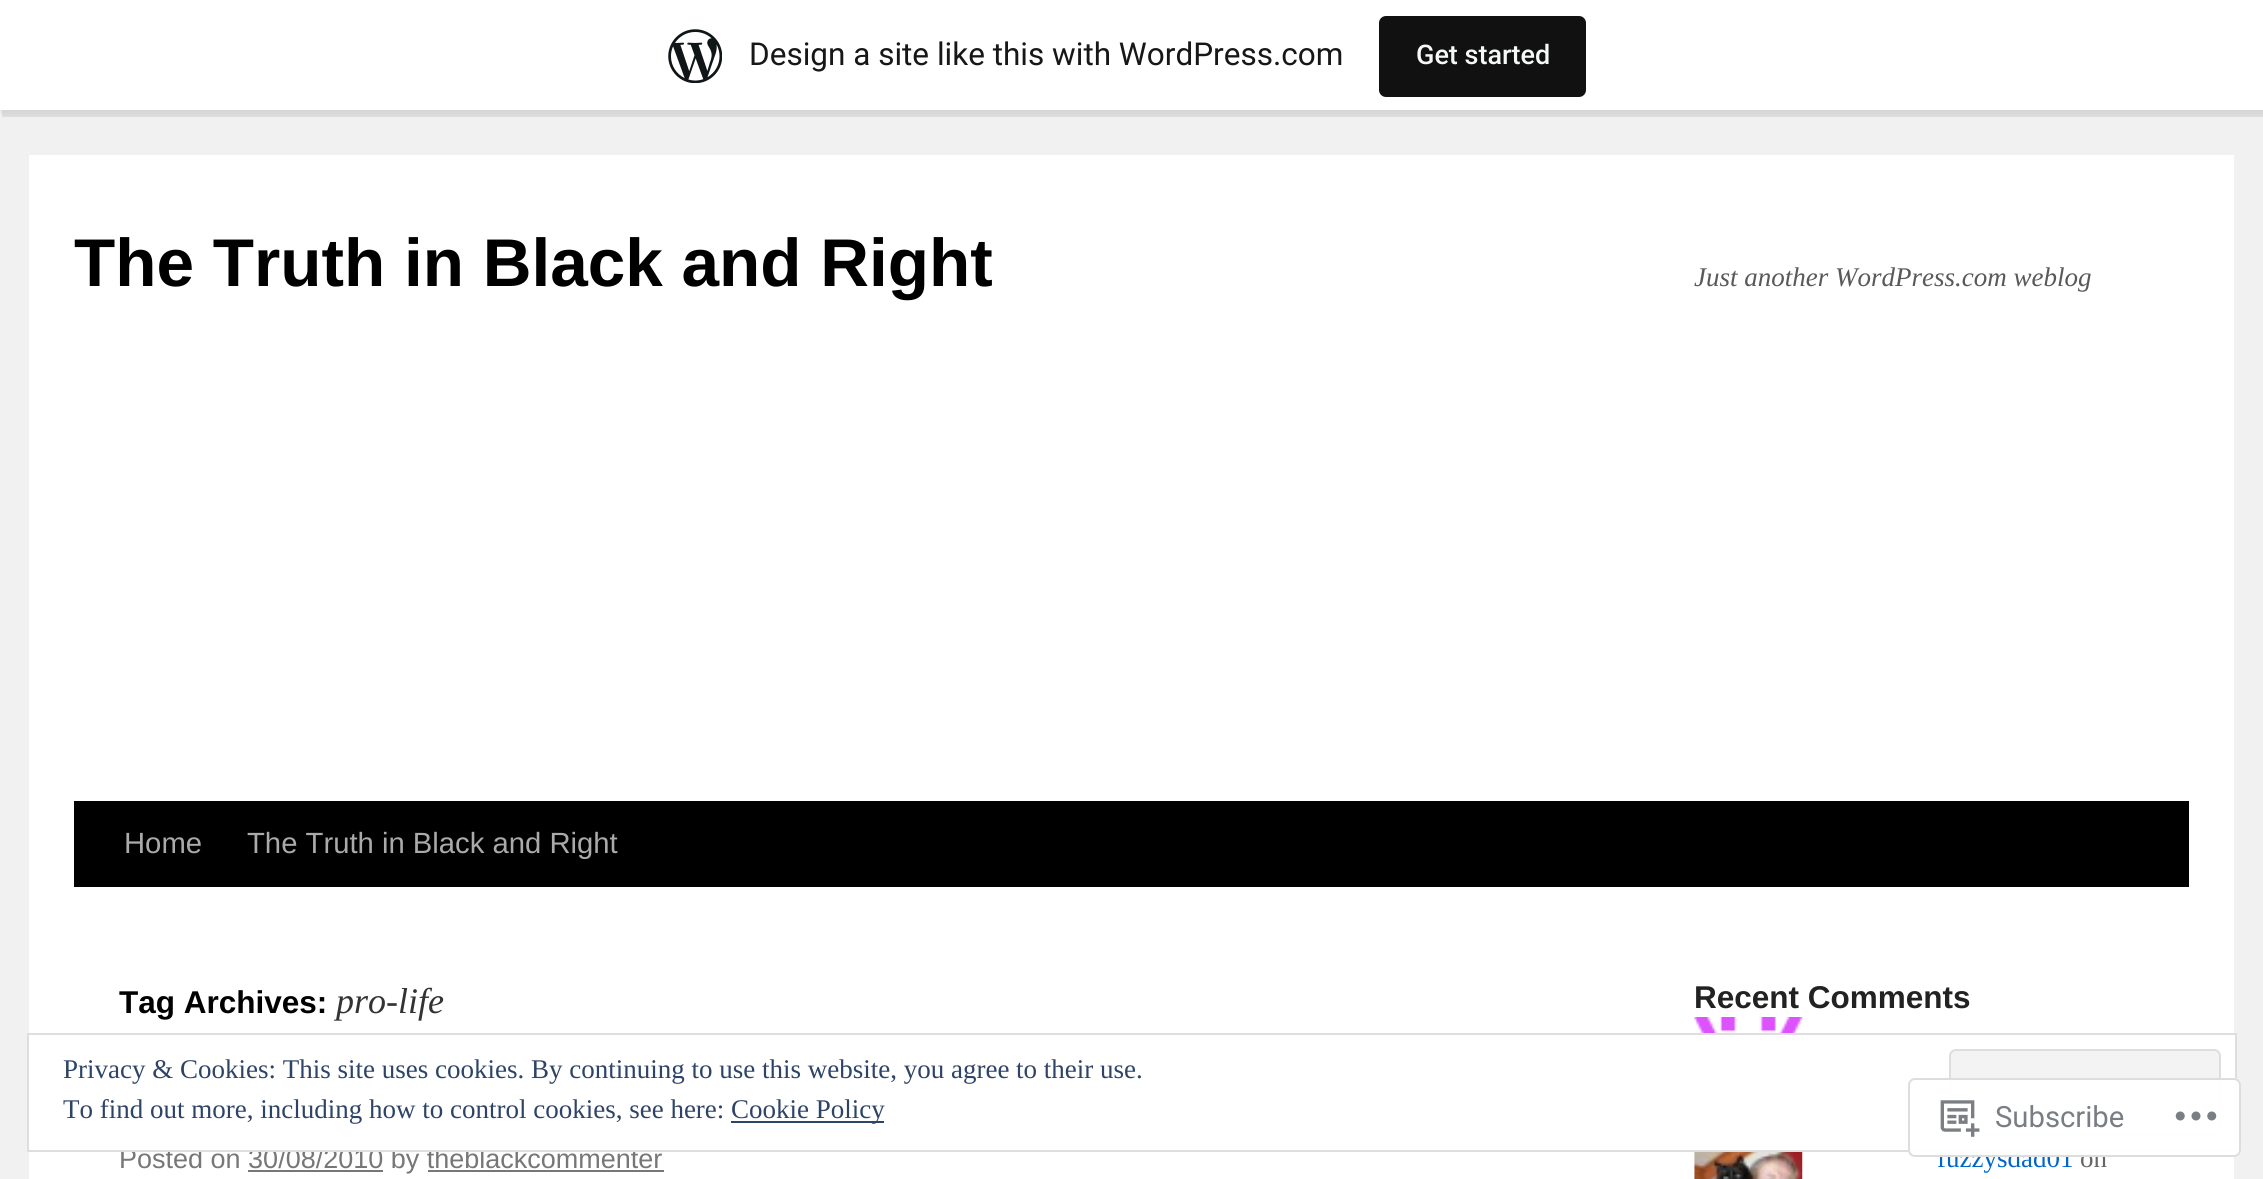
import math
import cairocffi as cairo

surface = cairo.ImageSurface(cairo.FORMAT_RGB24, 2263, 1179)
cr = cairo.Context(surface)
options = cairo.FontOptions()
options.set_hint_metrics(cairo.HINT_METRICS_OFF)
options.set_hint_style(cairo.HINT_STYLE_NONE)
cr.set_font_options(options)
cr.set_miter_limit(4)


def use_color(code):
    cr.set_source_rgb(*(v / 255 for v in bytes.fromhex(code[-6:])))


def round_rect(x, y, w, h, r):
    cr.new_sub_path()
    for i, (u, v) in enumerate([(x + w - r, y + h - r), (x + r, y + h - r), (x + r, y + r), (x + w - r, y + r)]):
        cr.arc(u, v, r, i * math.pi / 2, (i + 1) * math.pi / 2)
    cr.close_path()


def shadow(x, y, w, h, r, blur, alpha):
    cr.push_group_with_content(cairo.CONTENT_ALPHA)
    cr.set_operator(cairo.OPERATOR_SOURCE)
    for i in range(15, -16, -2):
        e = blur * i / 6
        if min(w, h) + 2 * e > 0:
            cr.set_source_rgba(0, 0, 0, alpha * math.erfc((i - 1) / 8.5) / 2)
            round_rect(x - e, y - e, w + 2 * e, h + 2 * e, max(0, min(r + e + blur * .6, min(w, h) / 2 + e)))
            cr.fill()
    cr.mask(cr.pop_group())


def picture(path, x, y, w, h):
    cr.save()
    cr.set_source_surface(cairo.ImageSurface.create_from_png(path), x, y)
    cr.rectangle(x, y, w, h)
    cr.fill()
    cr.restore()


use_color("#f1f1f1")
cr.paint()
use_color("#000000")
shadow(0, 2, 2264, 111, 0, 2, 0.05)
cr.set_source_rgba(0, 0, 0, 0.08)
cr.new_path()
cr.move_to(2, 110)
cr.line_to(2, 117)
cr.line_to(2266, 117)
cr.line_to(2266, 7)
cr.line_to(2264, 7)
cr.line_to(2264, 110)
cr.close_path()
cr.fill()
use_color("#ffffff")
cr.rectangle(0, 0, 2263, 110)
cr.fill()
picture("img1.png", 668, 29, 54, 54)
cr.select_font_face("Roboto")
cr.set_font_size(31.5)
use_color("#171717")
cr.move_to(749, 65)
cr.show_text("Design a site like this with WordPress.com")
use_color("#111111")
round_rect(1379, 16, 207, 81, 7)
cr.fill()
cr.select_font_face("Roboto Medium")
cr.set_font_size(27)
use_color("#f6f7f7")
cr.move_to(1416, 64)
cr.show_text("Get started")
use_color("#ffffff")
cr.rectangle(29, 155, 2205, 1024)
cr.fill()
cr.select_font_face("Liberation Sans", cairo.FONT_SLANT_NORMAL, cairo.FONT_WEIGHT_BOLD)
cr.set_font_size(67.5)
use_color("#000000")
cr.move_to(74, 286)
cr.show_text("The Truth in Black and Right")
cr.select_font_face("Liberation Serif", cairo.FONT_SLANT_ITALIC)
cr.set_font_size(27)
use_color("#595959")
cr.move_to(1694, 286)
cr.show_text("Just another WordPress.com weblog")
use_color("#000000")
cr.rectangle(74, 801, 2115, 86)
cr.fill()
cr.select_font_face("Liberation Sans")
cr.set_font_size(29.25)
use_color("#aaaaaa")
cr.move_to(124, 853)
cr.show_text("Home")
cr.move_to(247, 853)
cr.show_text("The Truth in Black and Right")
cr.select_font_face("Liberation Sans", cairo.FONT_SLANT_NORMAL, cairo.FONT_WEIGHT_BOLD)
cr.set_font_size(31.5)
use_color("#000000")
cr.move_to(119, 1013)
cr.show_text("Tag Archives:")
cr.select_font_face("Liberation Serif", cairo.FONT_SLANT_ITALIC)
cr.set_font_size(36)
use_color("#333333")
cr.move_to(336, 1013)
cr.show_text("pro-life")
cr.select_font_face("Liberation Sans")
cr.set_font_size(27)
use_color("#777777")
cr.move_to(119, 1168)
cr.show_text("Posted on 30/08/2010 by theblackcommenter")
cr.rectangle(248, 1170, 135, 2)
cr.fill()
cr.rectangle(428, 1170, 236, 2)
cr.fill()
cr.select_font_face("Liberation Sans", cairo.FONT_SLANT_NORMAL, cairo.FONT_WEIGHT_BOLD)
cr.set_font_size(31.5)
use_color("#222222")
cr.move_to(1694, 1008)
cr.show_text("Recent Comments")
picture("img2.png", 1694, 1017, 109, 16)
picture("img3.png", 1694, 1152, 109, 27)
cr.select_font_face("Liberation Serif")
cr.set_font_size(27)
use_color("#0066cc")
cr.move_to(1937, 1167)
cr.show_text("fuzzysdad01")
use_color("#666666")
cr.move_to(2080, 1167)
cr.show_text("on")
use_color("#ffffff")
cr.rectangle(121, 1035, 2114, 115)
cr.fill()
cr.rectangle(28, 1034, 2208, 117)
use_color("#dedede")
cr.stroke()
use_color("#2e4467")
cr.move_to(63, 1078)
cr.show_text("Privacy & Cookies: This site uses cookies. By continuing to use this website, you agree to their use.")
use_color("#f3f3f3")
round_rect(1950, 1050, 270, 85, 6)
cr.fill_preserve()
use_color("#dedede")
cr.stroke()
use_color("#2e4467")
cr.move_to(63, 1118)
cr.show_text("To find out more, including how to control cookies, see here:")
cr.rectangle(731, 1121, 153, 2)
cr.fill()
cr.move_to(731, 1118)
cr.show_text("Cookie Policy")
cr.set_source_rgba(1, 1, 1, 0.98)
round_rect(1908, 1078, 333, 79, 7)
cr.fill()
round_rect(1909, 1079, 331, 77, 6)
cr.set_source_rgba(0.863, 0.863, 0.871, 0.98)
cr.stroke()
picture("img4.png", 1940, 1100, 40, 37)
cr.select_font_face("Roboto")
cr.set_font_size(29.25)
use_color("#7a7e84")
cr.move_to(1995, 1127)
cr.show_text("Subscribe")
picture("img5.png", 2175, 1111, 42, 10)
surface.write_to_png("result.png")
